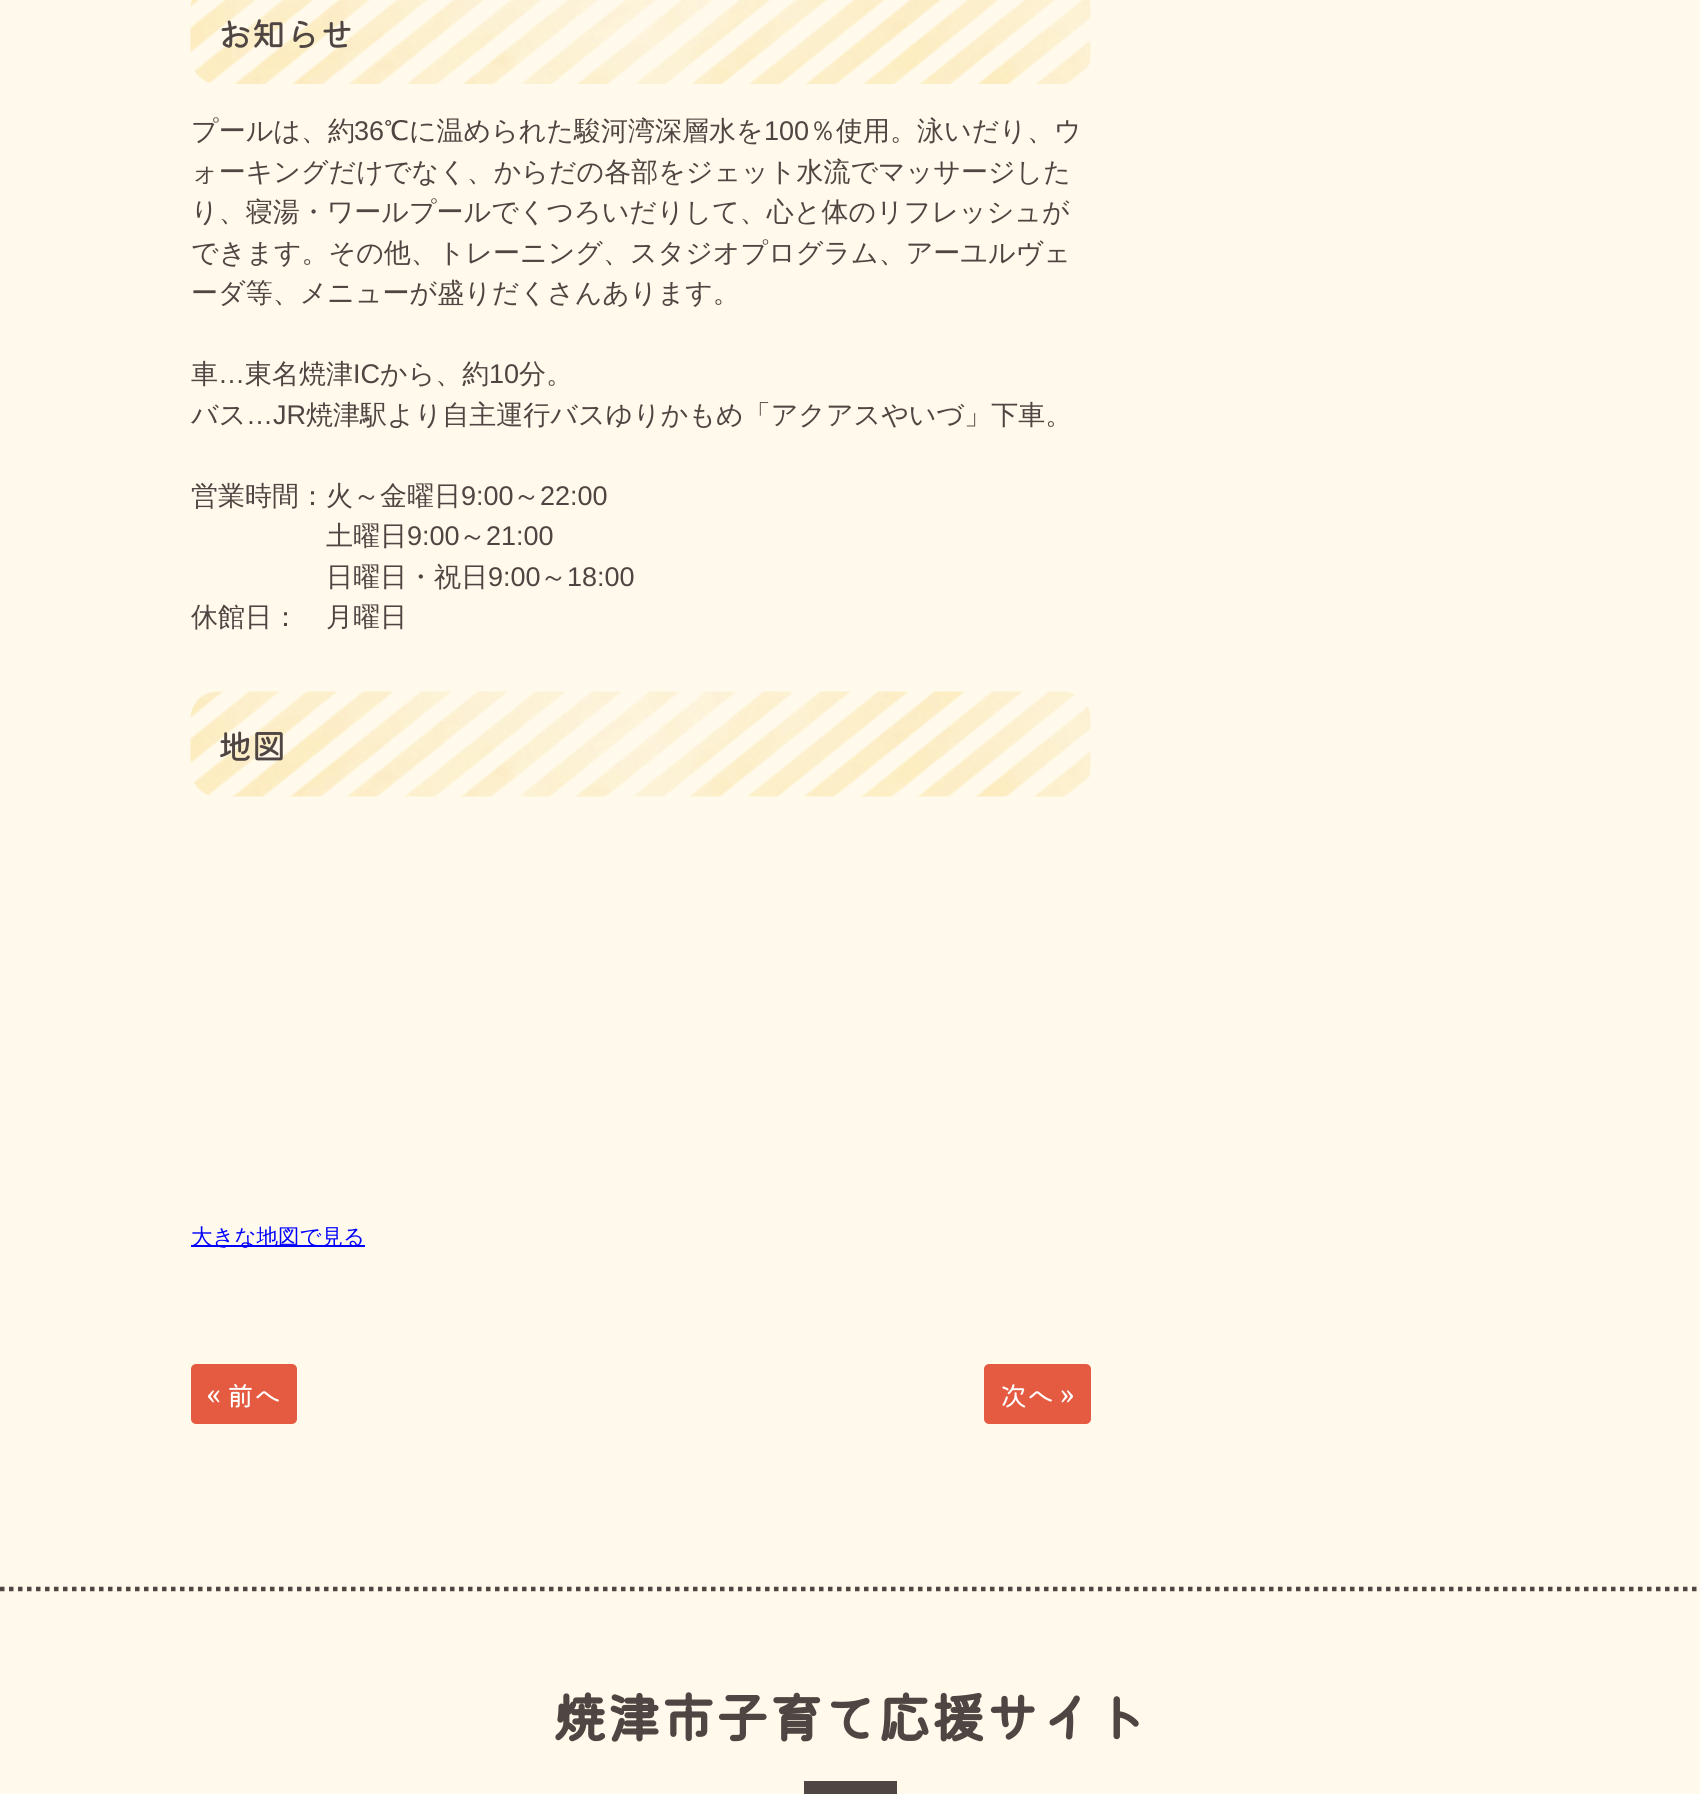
import math
import cairocffi as cairo

surface = cairo.ImageSurface(cairo.FORMAT_RGB24, 1700, 1794)
cr = cairo.Context(surface)
options = cairo.FontOptions()
options.set_hint_metrics(cairo.HINT_METRICS_OFF)
options.set_hint_style(cairo.HINT_STYLE_NONE)
cr.set_font_options(options)
cr.set_miter_limit(4)


def use_color(code):
    cr.set_source_rgb(*(v / 255 for v in bytes.fromhex(code[-6:])))


def round_rect(x, y, w, h, r):
    cr.new_sub_path()
    for i, (u, v) in enumerate([(x + w - r, y + h - r), (x + r, y + h - r), (x + r, y + r), (x + w - r, y + r)]):
        cr.arc(u, v, r, i * math.pi / 2, (i + 1) * math.pi / 2)
    cr.close_path()


def picture(path, x, y, w, h):
    cr.save()
    cr.set_source_surface(cairo.ImageSurface.create_from_png(path), x, y)
    cr.rectangle(x, y, w, h)
    cr.fill()
    cr.restore()


use_color("#fffaeb")
cr.paint()
picture("img1.png", 190, 0, 901, 84)
cr.select_font_face("Kiwi Maru Medium")
cr.set_font_size(34)
use_color("#4f4542")
cr.move_to(218, 47)
cr.show_text("お知らせ")
cr.select_font_face("WenQuanYi Zen Hei Medium")
cr.set_font_size(27)
cr.move_to(191, 140)
cr.show_text("プールは、約")
cr.select_font_face("Liberation Sans")
cr.move_to(354, 140)
cr.show_text("36")
cr.select_font_face("WenQuanYi Zen Hei Medium")
cr.move_to(384, 140)
cr.show_text("℃に温められた駿河湾深層水を")
cr.select_font_face("Liberation Sans")
cr.move_to(764, 140)
cr.show_text("100")
cr.select_font_face("WenQuanYi Zen Hei Medium")
cr.move_to(809, 140)
cr.show_text("％使用。泳いだり、ウ")
cr.move_to(191, 181)
cr.show_text("ォーキングだけでなく、からだの各部をジェット水流でマッサージした")
cr.move_to(191, 221)
cr.show_text("り、寝湯・ワールプールでくつろいだりして、心と体のリフレッシュが")
cr.move_to(191, 262)
cr.show_text("できます。その他、トレーニング、スタジオプログラム、アーユルヴェ")
cr.move_to(191, 302)
cr.show_text("ーダ等、メニューが盛りだくさんあります。")
cr.move_to(191, 383)
cr.show_text("車")
cr.select_font_face("Liberation Sans")
cr.move_to(218, 383)
cr.show_text("…")
cr.select_font_face("WenQuanYi Zen Hei Medium")
cr.move_to(245, 383)
cr.show_text("東名焼津")
cr.select_font_face("Liberation Sans")
cr.move_to(353, 383)
cr.show_text("IC")
cr.select_font_face("WenQuanYi Zen Hei Medium")
cr.move_to(380, 383)
cr.show_text("から、約")
cr.select_font_face("Liberation Sans")
cr.move_to(489, 383)
cr.show_text("10")
cr.select_font_face("WenQuanYi Zen Hei Medium")
cr.move_to(519, 383)
cr.show_text("分。")
cr.move_to(191, 424)
cr.show_text("バス")
cr.select_font_face("Liberation Sans")
cr.move_to(246, 424)
cr.show_text("…JR")
cr.select_font_face("WenQuanYi Zen Hei Medium")
cr.move_to(306, 424)
cr.show_text("焼津駅より自主運行バスゆりかもめ「アクアスやいづ」下車。")
cr.move_to(191, 505)
cr.show_text("営業時間：火～金曜日")
cr.select_font_face("Liberation Sans")
cr.move_to(461, 505)
cr.show_text("9:00")
cr.select_font_face("WenQuanYi Zen Hei Medium")
cr.move_to(513, 505)
cr.show_text("～")
cr.select_font_face("Liberation Sans")
cr.move_to(540, 505)
cr.show_text("22:00")
cr.select_font_face("WenQuanYi Zen Hei Medium")
cr.move_to(326, 545)
cr.show_text("土曜日")
cr.select_font_face("Liberation Sans")
cr.move_to(407, 545)
cr.show_text("9:00")
cr.select_font_face("WenQuanYi Zen Hei Medium")
cr.move_to(459, 545)
cr.show_text("～")
cr.select_font_face("Liberation Sans")
cr.move_to(486, 545)
cr.show_text("21:00")
cr.select_font_face("WenQuanYi Zen Hei Medium")
cr.move_to(326, 586)
cr.show_text("日曜日・祝日")
cr.select_font_face("Liberation Sans")
cr.move_to(488, 586)
cr.show_text("9:00")
cr.select_font_face("WenQuanYi Zen Hei Medium")
cr.move_to(540, 586)
cr.show_text("～")
cr.select_font_face("Liberation Sans")
cr.move_to(567, 586)
cr.show_text("18:00")
cr.select_font_face("WenQuanYi Zen Hei Medium")
cr.move_to(191, 626)
cr.show_text("休館日：　月曜日")
picture("img2.png", 190, 691, 901, 106)
cr.select_font_face("Kiwi Maru Medium")
cr.set_font_size(34)
cr.move_to(218, 759)
cr.show_text("地図")
use_color("#0000ff")
cr.rectangle(191, 1245, 174, 2)
cr.fill()
cr.select_font_face("WenQuanYi Zen Hei Medium")
cr.set_font_size(21.5)
cr.move_to(191, 1244)
cr.show_text("大きな地図で見る")
use_color("#e45b42")
round_rect(192, 1365, 104, 58, 4)
cr.fill_preserve()
cr.stroke()
cr.select_font_face("Kiwi Maru")
cr.set_font_size(27)
use_color("#ffffff")
cr.move_to(207, 1406)
cr.show_text("« 前へ")
use_color("#e45b42")
round_rect(985, 1365, 105, 58, 4)
cr.fill_preserve()
cr.stroke()
use_color("#ffffff")
cr.move_to(1000, 1406)
cr.show_text("次へ »")
cr.new_path()
cr.move_to(0, 1589)
cr.line_to(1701, 1589)
use_color("#4f4542")
cr.set_line_width(4.5)
cr.set_dash([4.5, 4.5])
cr.stroke()
cr.select_font_face("Kiwi Maru", cairo.FONT_SLANT_NORMAL, cairo.FONT_WEIGHT_BOLD)
cr.set_font_size(54)
cr.move_to(553, 1738)
cr.show_text("焼津市子育て応援サイト")
cr.rectangle(804, 1781, 93, 13)
cr.fill()
surface.write_to_png("result.png")
